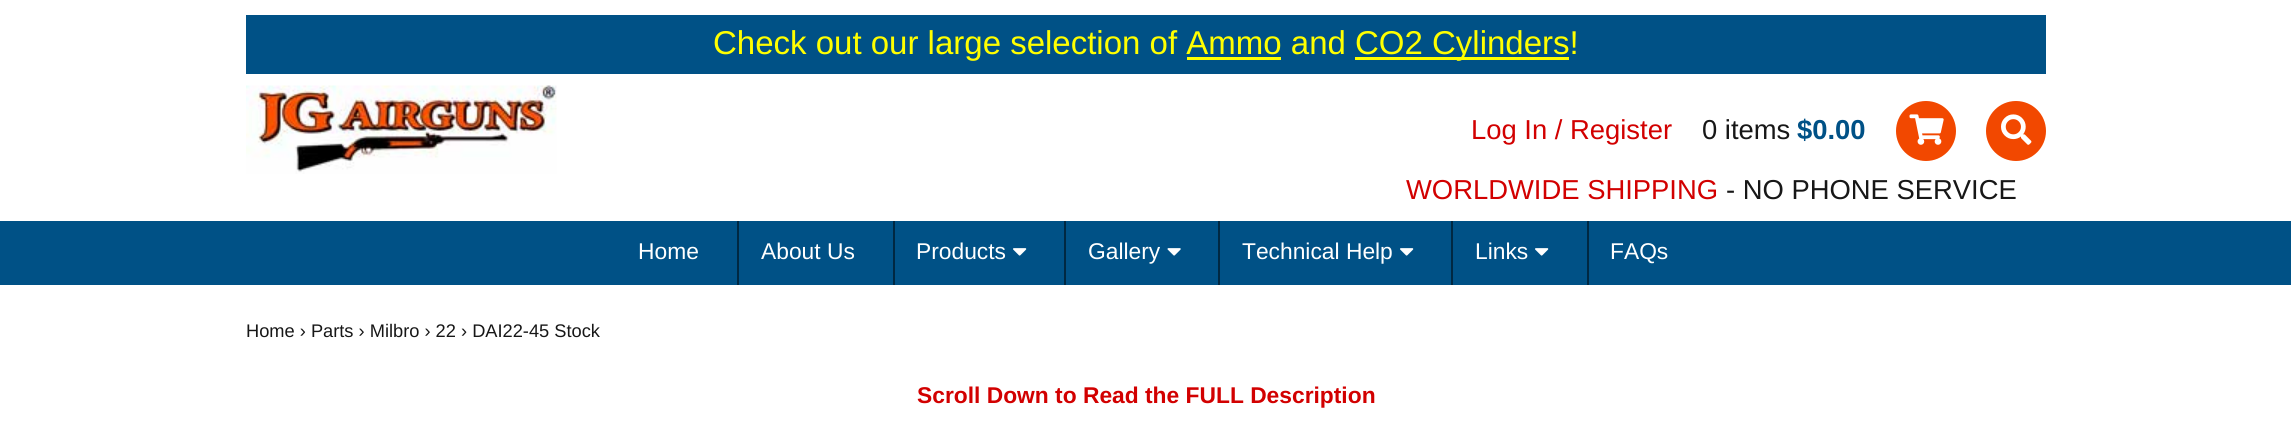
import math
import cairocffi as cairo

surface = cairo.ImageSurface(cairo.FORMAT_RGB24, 2291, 437)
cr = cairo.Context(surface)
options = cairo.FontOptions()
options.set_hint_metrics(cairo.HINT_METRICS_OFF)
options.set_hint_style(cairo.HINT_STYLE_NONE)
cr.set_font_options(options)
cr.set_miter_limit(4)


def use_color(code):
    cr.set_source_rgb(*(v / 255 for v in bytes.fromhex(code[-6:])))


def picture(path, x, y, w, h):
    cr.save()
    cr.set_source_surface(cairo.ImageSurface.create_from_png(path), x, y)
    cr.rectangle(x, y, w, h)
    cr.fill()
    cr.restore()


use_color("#ffffff")
cr.paint()
use_color("#005186")
cr.rectangle(246, 15, 1800, 59)
cr.fill()
cr.select_font_face("Liberation Sans")
cr.set_font_size(33)
use_color("#ffff00")
cr.move_to(713, 54)
cr.show_text("Check out our large selection of Ammo and")
cr.rectangle(1355, 57, 214, 3)
cr.fill()
cr.move_to(1355, 54)
cr.show_text("CO2 Cylinders!")
cr.rectangle(1187, 57, 94, 3)
cr.fill()
picture("img1.png", 246, 85, 311, 89)
cr.set_font_size(27.4)
use_color("#d20000")
cr.move_to(1471, 139)
cr.show_text("Log In / Register")
use_color("#171717")
cr.move_to(1702, 139)
cr.show_text("0 items")
cr.select_font_face("Liberation Sans", cairo.FONT_SLANT_NORMAL, cairo.FONT_WEIGHT_BOLD)
use_color("#005186")
cr.move_to(1797, 139)
cr.show_text("$0.00")
use_color("#f24800")
cr.new_path()
cr.arc(1926, 131, 30, 0, 2 * math.pi)
cr.fill()
picture("img2.png", 1909, 114, 35, 31)
cr.arc(2016, 131, 30, 0, 2 * math.pi)
cr.fill()
picture("img3.png", 2001, 114, 31, 31)
cr.select_font_face("Liberation Sans")
use_color("#d20000")
cr.move_to(1406, 199)
cr.show_text("WORLDWIDE SHIPPING")
use_color("#171717")
cr.move_to(1726, 199)
cr.show_text("- NO PHONE SERVICE")
use_color("#005186")
cr.rectangle(0, 221, 2291, 64)
cr.fill()
cr.set_font_size(22.8)
use_color("#ffffff")
cr.move_to(638, 259)
cr.show_text("Home")
use_color("#002842")
cr.rectangle(737, 221, 2, 64)
cr.fill()
use_color("#ffffff")
cr.move_to(761, 259)
cr.show_text("About Us")
use_color("#002842")
cr.rectangle(893, 221, 2, 64)
cr.fill()
use_color("#ffffff")
cr.move_to(916, 259)
cr.show_text("Products")
picture("img4.png", 1013, 248, 14, 8)
use_color("#002842")
cr.rectangle(1064, 221, 2, 64)
cr.fill()
use_color("#ffffff")
cr.move_to(1088, 259)
cr.show_text("Gallery")
picture("img5.png", 1167, 248, 14, 8)
use_color("#002842")
cr.rectangle(1218, 221, 2, 64)
cr.fill()
use_color("#ffffff")
cr.move_to(1242, 259)
cr.show_text("Technical Help")
picture("img4.png", 1400, 248, 14, 8)
use_color("#002842")
cr.rectangle(1451, 221, 2, 64)
cr.fill()
use_color("#ffffff")
cr.move_to(1475, 259)
cr.show_text("Links")
picture("img4.png", 1535, 248, 14, 8)
use_color("#002842")
cr.rectangle(1587, 221, 2, 64)
cr.fill()
use_color("#ffffff")
cr.move_to(1610, 259)
cr.show_text("FAQs")
cr.set_font_size(18.25)
use_color("#171717")
cr.move_to(246, 337)
cr.show_text("Home › Parts › Milbro › 22 › DAI22-45 Stock")
cr.select_font_face("Liberation Sans", cairo.FONT_SLANT_NORMAL, cairo.FONT_WEIGHT_BOLD)
cr.set_font_size(22.8)
use_color("#d20000")
cr.move_to(917, 403)
cr.show_text("Scroll Down to Read the FULL Description")
surface.write_to_png("result.png")
